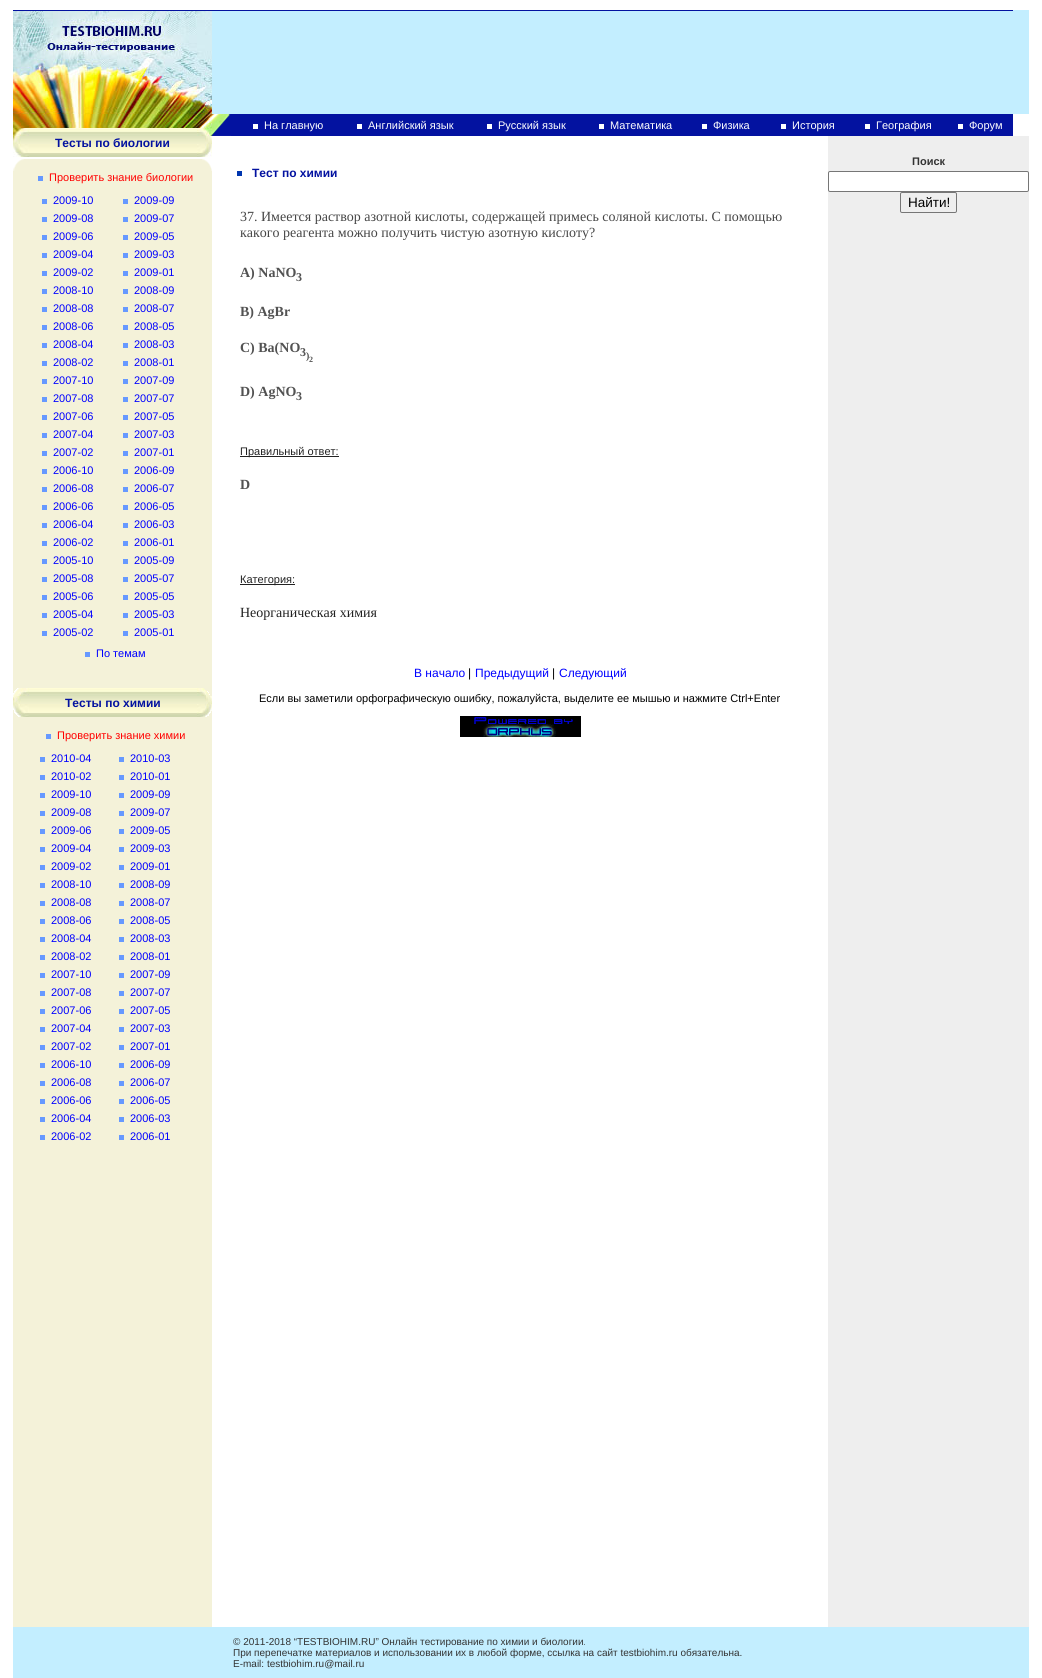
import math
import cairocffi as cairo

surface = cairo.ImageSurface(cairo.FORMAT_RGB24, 1042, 1678)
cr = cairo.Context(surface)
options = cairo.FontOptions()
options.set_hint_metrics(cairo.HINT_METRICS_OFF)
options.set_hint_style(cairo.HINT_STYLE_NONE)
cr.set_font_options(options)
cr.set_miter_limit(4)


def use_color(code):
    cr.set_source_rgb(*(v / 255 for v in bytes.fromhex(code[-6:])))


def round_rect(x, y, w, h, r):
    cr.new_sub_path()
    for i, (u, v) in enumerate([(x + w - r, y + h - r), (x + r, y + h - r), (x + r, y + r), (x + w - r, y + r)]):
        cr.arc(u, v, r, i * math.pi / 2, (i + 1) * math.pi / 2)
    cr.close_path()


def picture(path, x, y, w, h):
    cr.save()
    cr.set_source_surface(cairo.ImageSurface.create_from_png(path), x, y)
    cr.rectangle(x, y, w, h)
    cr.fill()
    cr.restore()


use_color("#ffffff")
cr.paint()
use_color("#c3eeff")
cr.rectangle(212, 10, 817, 104)
cr.fill()
use_color("#0312a0")
cr.rectangle(13, 10, 1000, 1)
cr.fill()
picture("img1.png", 13, 11, 199, 103)
cr.rectangle(231, 114, 782, 22)
cr.fill()
picture("img2.png", 212, 114, 19, 22)
use_color("#ffffff")
cr.rectangle(253, 124, 5, 5)
cr.fill()
cr.select_font_face("Liberation Sans")
cr.set_font_size(11)
cr.move_to(264, 129)
cr.show_text("На главную")
cr.rectangle(357, 124, 5, 5)
cr.fill()
cr.move_to(368, 129)
cr.show_text("Английский язык")
cr.rectangle(487, 124, 5, 5)
cr.fill()
cr.move_to(498, 129)
cr.show_text("Русский язык")
cr.rectangle(599, 124, 5, 5)
cr.fill()
cr.move_to(610, 129)
cr.show_text("Математика")
cr.rectangle(702, 124, 5, 5)
cr.fill()
cr.move_to(713, 129)
cr.show_text("Физика")
cr.rectangle(781, 124, 5, 5)
cr.fill()
cr.move_to(792, 129)
cr.show_text("История")
cr.rectangle(865, 124, 5, 5)
cr.fill()
cr.move_to(876, 129)
cr.show_text("География")
cr.rectangle(958, 124, 5, 5)
cr.fill()
cr.move_to(969, 129)
cr.show_text("Форум")
use_color("#f4f2d9")
cr.rectangle(13, 159, 199, 1468)
cr.fill()
picture("img3.png", 13, 114, 199, 14)
picture("img4.png", 13, 128, 199, 29)
cr.select_font_face("Liberation Sans", cairo.FONT_SLANT_NORMAL, cairo.FONT_WEIGHT_BOLD)
cr.set_font_size(12)
use_color("#0312a0")
cr.move_to(55, 147)
cr.show_text("Тесты по биологии")
picture("img5.png", 13, 159, 11, 12)
picture("img6.png", 202, 159, 10, 12)
use_color("#6699ff")
cr.rectangle(38, 176, 5, 5)
cr.fill()
cr.select_font_face("Liberation Sans")
cr.set_font_size(11)
use_color("#ff0000")
cr.move_to(49, 181)
cr.show_text("Проверить знание биологии")
use_color("#6699ff")
cr.rectangle(42, 199, 5, 5)
cr.fill()
use_color("#0000ff")
cr.move_to(53, 204)
cr.show_text("2009-10")
use_color("#6699ff")
cr.rectangle(123, 199, 5, 5)
cr.fill()
use_color("#0000ff")
cr.move_to(134, 204)
cr.show_text("2009-09")
use_color("#6699ff")
cr.rectangle(42, 217, 5, 5)
cr.fill()
use_color("#0000ff")
cr.move_to(53, 222)
cr.show_text("2009-08")
use_color("#6699ff")
cr.rectangle(123, 217, 5, 5)
cr.fill()
use_color("#0000ff")
cr.move_to(134, 222)
cr.show_text("2009-07")
use_color("#6699ff")
cr.rectangle(42, 235, 5, 5)
cr.fill()
use_color("#0000ff")
cr.move_to(53, 240)
cr.show_text("2009-06")
use_color("#6699ff")
cr.rectangle(123, 235, 5, 5)
cr.fill()
use_color("#0000ff")
cr.move_to(134, 240)
cr.show_text("2009-05")
use_color("#6699ff")
cr.rectangle(42, 253, 5, 5)
cr.fill()
use_color("#0000ff")
cr.move_to(53, 258)
cr.show_text("2009-04")
use_color("#6699ff")
cr.rectangle(123, 253, 5, 5)
cr.fill()
use_color("#0000ff")
cr.move_to(134, 258)
cr.show_text("2009-03")
use_color("#6699ff")
cr.rectangle(42, 271, 5, 5)
cr.fill()
use_color("#0000ff")
cr.move_to(53, 276)
cr.show_text("2009-02")
use_color("#6699ff")
cr.rectangle(123, 271, 5, 5)
cr.fill()
use_color("#0000ff")
cr.move_to(134, 276)
cr.show_text("2009-01")
use_color("#6699ff")
cr.rectangle(42, 289, 5, 5)
cr.fill()
use_color("#0000ff")
cr.move_to(53, 294)
cr.show_text("2008-10")
use_color("#6699ff")
cr.rectangle(123, 289, 5, 5)
cr.fill()
use_color("#0000ff")
cr.move_to(134, 294)
cr.show_text("2008-09")
use_color("#6699ff")
cr.rectangle(42, 307, 5, 5)
cr.fill()
use_color("#0000ff")
cr.move_to(53, 312)
cr.show_text("2008-08")
use_color("#6699ff")
cr.rectangle(123, 307, 5, 5)
cr.fill()
use_color("#0000ff")
cr.move_to(134, 312)
cr.show_text("2008-07")
use_color("#6699ff")
cr.rectangle(42, 325, 5, 5)
cr.fill()
use_color("#0000ff")
cr.move_to(53, 330)
cr.show_text("2008-06")
use_color("#6699ff")
cr.rectangle(123, 325, 5, 5)
cr.fill()
use_color("#0000ff")
cr.move_to(134, 330)
cr.show_text("2008-05")
use_color("#6699ff")
cr.rectangle(42, 343, 5, 5)
cr.fill()
use_color("#0000ff")
cr.move_to(53, 348)
cr.show_text("2008-04")
use_color("#6699ff")
cr.rectangle(123, 343, 5, 5)
cr.fill()
use_color("#0000ff")
cr.move_to(134, 348)
cr.show_text("2008-03")
use_color("#6699ff")
cr.rectangle(42, 361, 5, 5)
cr.fill()
use_color("#0000ff")
cr.move_to(53, 366)
cr.show_text("2008-02")
use_color("#6699ff")
cr.rectangle(123, 361, 5, 5)
cr.fill()
use_color("#0000ff")
cr.move_to(134, 366)
cr.show_text("2008-01")
use_color("#6699ff")
cr.rectangle(42, 379, 5, 5)
cr.fill()
use_color("#0000ff")
cr.move_to(53, 384)
cr.show_text("2007-10")
use_color("#6699ff")
cr.rectangle(123, 379, 5, 5)
cr.fill()
use_color("#0000ff")
cr.move_to(134, 384)
cr.show_text("2007-09")
use_color("#6699ff")
cr.rectangle(42, 397, 5, 5)
cr.fill()
use_color("#0000ff")
cr.move_to(53, 402)
cr.show_text("2007-08")
use_color("#6699ff")
cr.rectangle(123, 397, 5, 5)
cr.fill()
use_color("#0000ff")
cr.move_to(134, 402)
cr.show_text("2007-07")
use_color("#6699ff")
cr.rectangle(42, 415, 5, 5)
cr.fill()
use_color("#0000ff")
cr.move_to(53, 420)
cr.show_text("2007-06")
use_color("#6699ff")
cr.rectangle(123, 415, 5, 5)
cr.fill()
use_color("#0000ff")
cr.move_to(134, 420)
cr.show_text("2007-05")
use_color("#6699ff")
cr.rectangle(42, 433, 5, 5)
cr.fill()
use_color("#0000ff")
cr.move_to(53, 438)
cr.show_text("2007-04")
use_color("#6699ff")
cr.rectangle(123, 433, 5, 5)
cr.fill()
use_color("#0000ff")
cr.move_to(134, 438)
cr.show_text("2007-03")
use_color("#6699ff")
cr.rectangle(42, 451, 5, 5)
cr.fill()
use_color("#0000ff")
cr.move_to(53, 456)
cr.show_text("2007-02")
use_color("#6699ff")
cr.rectangle(123, 451, 5, 5)
cr.fill()
use_color("#0000ff")
cr.move_to(134, 456)
cr.show_text("2007-01")
use_color("#6699ff")
cr.rectangle(42, 469, 5, 5)
cr.fill()
use_color("#0000ff")
cr.move_to(53, 474)
cr.show_text("2006-10")
use_color("#6699ff")
cr.rectangle(123, 469, 5, 5)
cr.fill()
use_color("#0000ff")
cr.move_to(134, 474)
cr.show_text("2006-09")
use_color("#6699ff")
cr.rectangle(42, 487, 5, 5)
cr.fill()
use_color("#0000ff")
cr.move_to(53, 492)
cr.show_text("2006-08")
use_color("#6699ff")
cr.rectangle(123, 487, 5, 5)
cr.fill()
use_color("#0000ff")
cr.move_to(134, 492)
cr.show_text("2006-07")
use_color("#6699ff")
cr.rectangle(42, 505, 5, 5)
cr.fill()
use_color("#0000ff")
cr.move_to(53, 510)
cr.show_text("2006-06")
use_color("#6699ff")
cr.rectangle(123, 505, 5, 5)
cr.fill()
use_color("#0000ff")
cr.move_to(134, 510)
cr.show_text("2006-05")
use_color("#6699ff")
cr.rectangle(42, 523, 5, 5)
cr.fill()
use_color("#0000ff")
cr.move_to(53, 528)
cr.show_text("2006-04")
use_color("#6699ff")
cr.rectangle(123, 523, 5, 5)
cr.fill()
use_color("#0000ff")
cr.move_to(134, 528)
cr.show_text("2006-03")
use_color("#6699ff")
cr.rectangle(42, 541, 5, 5)
cr.fill()
use_color("#0000ff")
cr.move_to(53, 546)
cr.show_text("2006-02")
use_color("#6699ff")
cr.rectangle(123, 541, 5, 5)
cr.fill()
use_color("#0000ff")
cr.move_to(134, 546)
cr.show_text("2006-01")
use_color("#6699ff")
cr.rectangle(42, 559, 5, 5)
cr.fill()
use_color("#0000ff")
cr.move_to(53, 564)
cr.show_text("2005-10")
use_color("#6699ff")
cr.rectangle(123, 559, 5, 5)
cr.fill()
use_color("#0000ff")
cr.move_to(134, 564)
cr.show_text("2005-09")
use_color("#6699ff")
cr.rectangle(42, 577, 5, 5)
cr.fill()
use_color("#0000ff")
cr.move_to(53, 582)
cr.show_text("2005-08")
use_color("#6699ff")
cr.rectangle(123, 577, 5, 5)
cr.fill()
use_color("#0000ff")
cr.move_to(134, 582)
cr.show_text("2005-07")
use_color("#6699ff")
cr.rectangle(42, 595, 5, 5)
cr.fill()
use_color("#0000ff")
cr.move_to(53, 600)
cr.show_text("2005-06")
use_color("#6699ff")
cr.rectangle(123, 595, 5, 5)
cr.fill()
use_color("#0000ff")
cr.move_to(134, 600)
cr.show_text("2005-05")
use_color("#6699ff")
cr.rectangle(42, 613, 5, 5)
cr.fill()
use_color("#0000ff")
cr.move_to(53, 618)
cr.show_text("2005-04")
use_color("#6699ff")
cr.rectangle(123, 613, 5, 5)
cr.fill()
use_color("#0000ff")
cr.move_to(134, 618)
cr.show_text("2005-03")
use_color("#6699ff")
cr.rectangle(42, 631, 5, 5)
cr.fill()
use_color("#0000ff")
cr.move_to(53, 636)
cr.show_text("2005-02")
use_color("#6699ff")
cr.rectangle(123, 631, 5, 5)
cr.fill()
use_color("#0000ff")
cr.move_to(134, 636)
cr.show_text("2005-01")
use_color("#6699ff")
cr.rectangle(85, 652, 5, 5)
cr.fill()
use_color("#0000ff")
cr.move_to(96, 657)
cr.show_text("По темам")
picture("img7.png", 13, 688, 199, 29)
cr.select_font_face("Liberation Sans", cairo.FONT_SLANT_NORMAL, cairo.FONT_WEIGHT_BOLD)
cr.set_font_size(12)
use_color("#0312a0")
cr.move_to(65, 707)
cr.show_text("Тесты по химии")
use_color("#6699ff")
cr.rectangle(46, 734, 5, 5)
cr.fill()
cr.select_font_face("Liberation Sans")
cr.set_font_size(11)
use_color("#ff0000")
cr.move_to(57, 739)
cr.show_text("Проверить знание химии")
use_color("#6699ff")
cr.rectangle(40, 757, 5, 5)
cr.fill()
use_color("#0000ff")
cr.move_to(51, 762)
cr.show_text("2010-04")
use_color("#6699ff")
cr.rectangle(119, 757, 5, 5)
cr.fill()
use_color("#0000ff")
cr.move_to(130, 762)
cr.show_text("2010-03")
use_color("#6699ff")
cr.rectangle(40, 775, 5, 5)
cr.fill()
use_color("#0000ff")
cr.move_to(51, 780)
cr.show_text("2010-02")
use_color("#6699ff")
cr.rectangle(119, 775, 5, 5)
cr.fill()
use_color("#0000ff")
cr.move_to(130, 780)
cr.show_text("2010-01")
use_color("#6699ff")
cr.rectangle(40, 793, 5, 5)
cr.fill()
use_color("#0000ff")
cr.move_to(51, 798)
cr.show_text("2009-10")
use_color("#6699ff")
cr.rectangle(119, 793, 5, 5)
cr.fill()
use_color("#0000ff")
cr.move_to(130, 798)
cr.show_text("2009-09")
use_color("#6699ff")
cr.rectangle(40, 811, 5, 5)
cr.fill()
use_color("#0000ff")
cr.move_to(51, 816)
cr.show_text("2009-08")
use_color("#6699ff")
cr.rectangle(119, 811, 5, 5)
cr.fill()
use_color("#0000ff")
cr.move_to(130, 816)
cr.show_text("2009-07")
use_color("#6699ff")
cr.rectangle(40, 829, 5, 5)
cr.fill()
use_color("#0000ff")
cr.move_to(51, 834)
cr.show_text("2009-06")
use_color("#6699ff")
cr.rectangle(119, 829, 5, 5)
cr.fill()
use_color("#0000ff")
cr.move_to(130, 834)
cr.show_text("2009-05")
use_color("#6699ff")
cr.rectangle(40, 847, 5, 5)
cr.fill()
use_color("#0000ff")
cr.move_to(51, 852)
cr.show_text("2009-04")
use_color("#6699ff")
cr.rectangle(119, 847, 5, 5)
cr.fill()
use_color("#0000ff")
cr.move_to(130, 852)
cr.show_text("2009-03")
use_color("#6699ff")
cr.rectangle(40, 865, 5, 5)
cr.fill()
use_color("#0000ff")
cr.move_to(51, 870)
cr.show_text("2009-02")
use_color("#6699ff")
cr.rectangle(119, 865, 5, 5)
cr.fill()
use_color("#0000ff")
cr.move_to(130, 870)
cr.show_text("2009-01")
use_color("#6699ff")
cr.rectangle(40, 883, 5, 5)
cr.fill()
use_color("#0000ff")
cr.move_to(51, 888)
cr.show_text("2008-10")
use_color("#6699ff")
cr.rectangle(119, 883, 5, 5)
cr.fill()
use_color("#0000ff")
cr.move_to(130, 888)
cr.show_text("2008-09")
use_color("#6699ff")
cr.rectangle(40, 901, 5, 5)
cr.fill()
use_color("#0000ff")
cr.move_to(51, 906)
cr.show_text("2008-08")
use_color("#6699ff")
cr.rectangle(119, 901, 5, 5)
cr.fill()
use_color("#0000ff")
cr.move_to(130, 906)
cr.show_text("2008-07")
use_color("#6699ff")
cr.rectangle(40, 919, 5, 5)
cr.fill()
use_color("#0000ff")
cr.move_to(51, 924)
cr.show_text("2008-06")
use_color("#6699ff")
cr.rectangle(119, 919, 5, 5)
cr.fill()
use_color("#0000ff")
cr.move_to(130, 924)
cr.show_text("2008-05")
use_color("#6699ff")
cr.rectangle(40, 937, 5, 5)
cr.fill()
use_color("#0000ff")
cr.move_to(51, 942)
cr.show_text("2008-04")
use_color("#6699ff")
cr.rectangle(119, 937, 5, 5)
cr.fill()
use_color("#0000ff")
cr.move_to(130, 942)
cr.show_text("2008-03")
use_color("#6699ff")
cr.rectangle(40, 955, 5, 5)
cr.fill()
use_color("#0000ff")
cr.move_to(51, 960)
cr.show_text("2008-02")
use_color("#6699ff")
cr.rectangle(119, 955, 5, 5)
cr.fill()
use_color("#0000ff")
cr.move_to(130, 960)
cr.show_text("2008-01")
use_color("#6699ff")
cr.rectangle(40, 973, 5, 5)
cr.fill()
use_color("#0000ff")
cr.move_to(51, 978)
cr.show_text("2007-10")
use_color("#6699ff")
cr.rectangle(119, 973, 5, 5)
cr.fill()
use_color("#0000ff")
cr.move_to(130, 978)
cr.show_text("2007-09")
use_color("#6699ff")
cr.rectangle(40, 991, 5, 5)
cr.fill()
use_color("#0000ff")
cr.move_to(51, 996)
cr.show_text("2007-08")
use_color("#6699ff")
cr.rectangle(119, 991, 5, 5)
cr.fill()
use_color("#0000ff")
cr.move_to(130, 996)
cr.show_text("2007-07")
use_color("#6699ff")
cr.rectangle(40, 1009, 5, 5)
cr.fill()
use_color("#0000ff")
cr.move_to(51, 1014)
cr.show_text("2007-06")
use_color("#6699ff")
cr.rectangle(119, 1009, 5, 5)
cr.fill()
use_color("#0000ff")
cr.move_to(130, 1014)
cr.show_text("2007-05")
use_color("#6699ff")
cr.rectangle(40, 1027, 5, 5)
cr.fill()
use_color("#0000ff")
cr.move_to(51, 1032)
cr.show_text("2007-04")
use_color("#6699ff")
cr.rectangle(119, 1027, 5, 5)
cr.fill()
use_color("#0000ff")
cr.move_to(130, 1032)
cr.show_text("2007-03")
use_color("#6699ff")
cr.rectangle(40, 1045, 5, 5)
cr.fill()
use_color("#0000ff")
cr.move_to(51, 1050)
cr.show_text("2007-02")
use_color("#6699ff")
cr.rectangle(119, 1045, 5, 5)
cr.fill()
use_color("#0000ff")
cr.move_to(130, 1050)
cr.show_text("2007-01")
use_color("#6699ff")
cr.rectangle(40, 1063, 5, 5)
cr.fill()
use_color("#0000ff")
cr.move_to(51, 1068)
cr.show_text("2006-10")
use_color("#6699ff")
cr.rectangle(119, 1063, 5, 5)
cr.fill()
use_color("#0000ff")
cr.move_to(130, 1068)
cr.show_text("2006-09")
use_color("#6699ff")
cr.rectangle(40, 1081, 5, 5)
cr.fill()
use_color("#0000ff")
cr.move_to(51, 1086)
cr.show_text("2006-08")
use_color("#6699ff")
cr.rectangle(119, 1081, 5, 5)
cr.fill()
use_color("#0000ff")
cr.move_to(130, 1086)
cr.show_text("2006-07")
use_color("#6699ff")
cr.rectangle(40, 1099, 5, 5)
cr.fill()
use_color("#0000ff")
cr.move_to(51, 1104)
cr.show_text("2006-06")
use_color("#6699ff")
cr.rectangle(119, 1099, 5, 5)
cr.fill()
use_color("#0000ff")
cr.move_to(130, 1104)
cr.show_text("2006-05")
use_color("#6699ff")
cr.rectangle(40, 1117, 5, 5)
cr.fill()
use_color("#0000ff")
cr.move_to(51, 1122)
cr.show_text("2006-04")
use_color("#6699ff")
cr.rectangle(119, 1117, 5, 5)
cr.fill()
use_color("#0000ff")
cr.move_to(130, 1122)
cr.show_text("2006-03")
use_color("#6699ff")
cr.rectangle(40, 1135, 5, 5)
cr.fill()
use_color("#0000ff")
cr.move_to(51, 1140)
cr.show_text("2006-02")
use_color("#6699ff")
cr.rectangle(119, 1135, 5, 5)
cr.fill()
use_color("#0000ff")
cr.move_to(130, 1140)
cr.show_text("2006-01")
use_color("#0036af")
cr.rectangle(237, 171, 5, 5)
cr.fill()
cr.select_font_face("Liberation Sans", cairo.FONT_SLANT_NORMAL, cairo.FONT_WEIGHT_BOLD)
cr.set_font_size(12)
use_color("#0312a0")
cr.move_to(252, 177)
cr.show_text("Тест по химии")
cr.select_font_face("Liberation Serif")
cr.set_font_size(14)
use_color("#464646")
cr.move_to(240, 221)
cr.show_text("37. Имеется раствор азотной кислоты, содержащей примесь соляной кислоты. С помощью")
cr.move_to(240, 237)
cr.show_text("какого реагента можно получить чистую азотную кислоту?")
cr.select_font_face("Liberation Serif", cairo.FONT_SLANT_NORMAL, cairo.FONT_WEIGHT_BOLD)
use_color("#525252")
cr.move_to(240, 277)
cr.show_text("A) NaNO")
cr.set_font_size(12)
cr.move_to(296, 281)
cr.show_text("3")
cr.set_font_size(14)
cr.move_to(240, 316)
cr.show_text("B) AgBr")
cr.move_to(240, 352)
cr.show_text("C) Ba(NО")
cr.set_font_size(12)
cr.move_to(300, 356)
cr.show_text("3")
cr.set_font_size(10)
cr.move_to(306, 359)
cr.show_text(")")
cr.set_font_size(8)
cr.move_to(309, 362)
cr.show_text("2")
cr.set_font_size(14)
cr.move_to(240, 396)
cr.show_text("D) AgNО")
cr.set_font_size(12)
cr.move_to(296, 400)
cr.show_text("3")
use_color("#222222")
cr.rectangle(240, 456, 99, 1)
cr.fill()
cr.select_font_face("Liberation Sans")
cr.set_font_size(11)
cr.move_to(240, 455)
cr.show_text("Правильный ответ:")
cr.select_font_face("Liberation Serif", cairo.FONT_SLANT_NORMAL, cairo.FONT_WEIGHT_BOLD)
cr.set_font_size(14)
use_color("#525252")
cr.move_to(240, 489)
cr.show_text("D")
use_color("#222222")
cr.rectangle(240, 584, 55, 1)
cr.fill()
cr.select_font_face("Liberation Sans")
cr.set_font_size(11)
cr.move_to(240, 583)
cr.show_text("Категория:")
cr.select_font_face("Liberation Serif")
cr.set_font_size(14)
cr.move_to(240, 617)
cr.show_text("Неорганическая химия")
cr.select_font_face("Liberation Sans")
cr.set_font_size(12)
use_color("#0000ff")
cr.move_to(414, 677)
cr.show_text("В начало")
use_color("#000000")
cr.move_to(468, 677)
cr.show_text("|")
use_color("#0000ff")
cr.move_to(475, 677)
cr.show_text("Предыдущий")
use_color("#000000")
cr.move_to(552, 677)
cr.show_text("|")
use_color("#0000ff")
cr.move_to(559, 677)
cr.show_text("Следующий")
cr.set_font_size(11)
use_color("#000000")
cr.move_to(259, 702)
cr.show_text("Если вы заметили орфографическую ошибку, пожалуйста, выделите ее мышью и нажмите Ctrl+Enter")
picture("img8.png", 460, 716, 121, 21)
use_color("#eeeeee")
cr.rectangle(828, 136, 201, 1491)
cr.fill()
cr.select_font_face("Liberation Sans", cairo.FONT_SLANT_NORMAL, cairo.FONT_WEIGHT_BOLD)
use_color("#333333")
cr.move_to(912, 165)
cr.show_text("Поиск")
use_color("#ffffff")
round_rect(828.5, 171.5, 200, 20, 1.5)
cr.fill_preserve()
use_color("#767676")
cr.set_line_width(1)
cr.stroke()
round_rect(900.5, 192.5, 56, 20, 1.5)
cr.stroke()
cr.select_font_face("Liberation Sans")
cr.set_font_size(13.5)
use_color("#000000")
cr.move_to(908, 207)
cr.show_text("Найти!")
use_color("#c3eeff")
cr.rectangle(13, 1627, 1016, 51)
cr.fill()
cr.set_font_size(10)
use_color("#333333")
cr.move_to(233, 1645)
cr.show_text("© 2011-2018 “TESTBIOHIM.RU” Онлайн тестирование по химии и биологии.")
cr.move_to(233, 1656)
cr.show_text("При перепечатке материалов и использовании их в любой форме, ссылка на сайт testbiohim.ru обязательна.")
cr.move_to(233, 1667)
cr.show_text("E-mail: testbiohim.ru@mail.ru")
surface.write_to_png("result.png")
